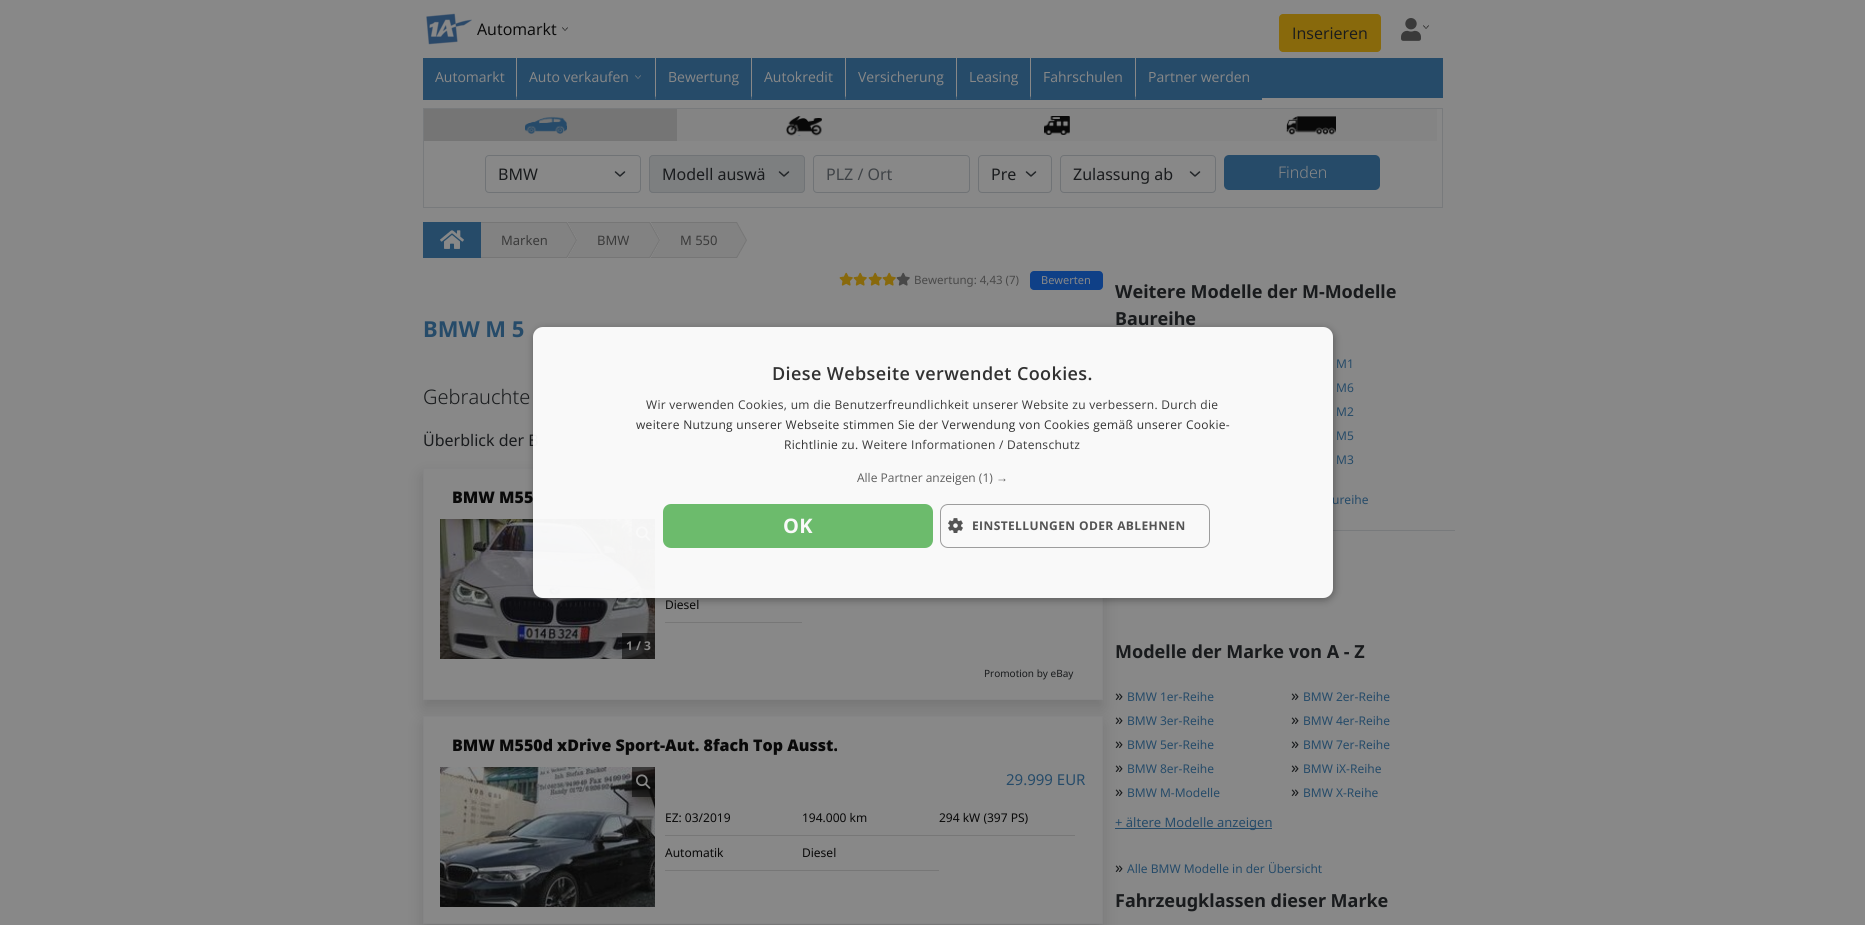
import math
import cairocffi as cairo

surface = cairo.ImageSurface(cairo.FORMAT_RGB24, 1865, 925)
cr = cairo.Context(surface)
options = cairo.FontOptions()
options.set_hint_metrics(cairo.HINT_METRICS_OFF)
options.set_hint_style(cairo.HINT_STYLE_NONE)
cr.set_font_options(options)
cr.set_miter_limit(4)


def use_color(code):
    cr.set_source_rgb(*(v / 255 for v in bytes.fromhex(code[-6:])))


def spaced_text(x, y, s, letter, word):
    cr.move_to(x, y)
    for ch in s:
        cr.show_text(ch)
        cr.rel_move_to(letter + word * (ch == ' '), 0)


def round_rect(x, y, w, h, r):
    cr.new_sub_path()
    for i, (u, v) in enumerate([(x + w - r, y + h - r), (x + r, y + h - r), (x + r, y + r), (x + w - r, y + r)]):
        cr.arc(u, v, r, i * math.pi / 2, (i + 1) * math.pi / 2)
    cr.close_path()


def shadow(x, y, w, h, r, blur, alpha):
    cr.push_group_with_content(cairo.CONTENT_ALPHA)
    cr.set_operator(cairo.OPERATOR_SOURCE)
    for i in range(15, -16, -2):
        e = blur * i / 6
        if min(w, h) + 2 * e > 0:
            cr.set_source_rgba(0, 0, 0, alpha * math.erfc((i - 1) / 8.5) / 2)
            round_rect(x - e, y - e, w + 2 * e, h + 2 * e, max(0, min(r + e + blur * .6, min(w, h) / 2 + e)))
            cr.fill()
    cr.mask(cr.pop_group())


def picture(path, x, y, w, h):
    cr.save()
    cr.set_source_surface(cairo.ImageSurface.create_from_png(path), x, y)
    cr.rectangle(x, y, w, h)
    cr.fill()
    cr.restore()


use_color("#888888")
cr.paint()
picture("img1.png", 426, 13, 46, 32)
cr.select_font_face("Open Sans")
cr.set_font_size(16)
use_color("#090909")
cr.move_to(477, 35)
cr.show_text("Automarkt")
picture("img2.png", 562, 27, 6, 4)
use_color("#88690c")
round_rect(1279, 14, 102, 38, 4)
cr.fill()
use_color("#191b1d")
cr.move_to(1292, 39)
cr.show_text("Inserieren")
picture("img3.png", 1401, 18, 20, 23)
picture("img4.png", 1423, 25, 6, 4)
use_color("#264b69")
cr.rectangle(423, 58, 1020, 40)
cr.fill()
use_color("#888888")
cr.new_path()
cr.move_to(517, 58)
cr.line_to(517, 100)
cr.line_to(516, 96)
cr.line_to(516, 58)
cr.close_path()
cr.fill()
use_color("#264b69")
cr.new_path()
cr.move_to(517, 100)
cr.line_to(423, 100)
cr.line_to(423, 96)
cr.line_to(516, 96)
cr.close_path()
cr.fill()
cr.set_font_size(14)
use_color("#888888")
cr.move_to(435, 82)
cr.show_text("Automarkt")
cr.new_path()
cr.move_to(656, 58)
cr.line_to(656, 100)
cr.line_to(655, 96)
cr.line_to(655, 58)
cr.close_path()
cr.fill()
use_color("#264b69")
cr.new_path()
cr.move_to(656, 100)
cr.line_to(517, 100)
cr.line_to(517, 96)
cr.line_to(655, 96)
cr.close_path()
cr.fill()
use_color("#888888")
cr.move_to(529, 82)
cr.show_text("Auto verkaufen")
picture("img5.png", 635, 75, 6, 4)
cr.new_path()
cr.move_to(752, 58)
cr.line_to(752, 100)
cr.line_to(751, 96)
cr.line_to(751, 58)
cr.close_path()
cr.fill()
use_color("#264b69")
cr.new_path()
cr.move_to(752, 100)
cr.line_to(656, 100)
cr.line_to(656, 96)
cr.line_to(751, 96)
cr.close_path()
cr.fill()
use_color("#888888")
cr.move_to(668, 82)
cr.show_text("Bewertung")
cr.new_path()
cr.move_to(846, 58)
cr.line_to(846, 100)
cr.line_to(845, 96)
cr.line_to(845, 58)
cr.close_path()
cr.fill()
use_color("#264b69")
cr.new_path()
cr.move_to(846, 100)
cr.line_to(752, 100)
cr.line_to(752, 96)
cr.line_to(845, 96)
cr.close_path()
cr.fill()
use_color("#888888")
cr.move_to(764, 82)
cr.show_text("Autokredit")
cr.new_path()
cr.move_to(957, 58)
cr.line_to(957, 100)
cr.line_to(956, 96)
cr.line_to(956, 58)
cr.close_path()
cr.fill()
use_color("#264b69")
cr.new_path()
cr.move_to(957, 100)
cr.line_to(846, 100)
cr.line_to(846, 96)
cr.line_to(956, 96)
cr.close_path()
cr.fill()
use_color("#888888")
cr.move_to(858, 82)
cr.show_text("Versicherung")
cr.new_path()
cr.move_to(1031, 58)
cr.line_to(1031, 100)
cr.line_to(1030, 96)
cr.line_to(1030, 58)
cr.close_path()
cr.fill()
use_color("#264b69")
cr.new_path()
cr.move_to(1031, 100)
cr.line_to(957, 100)
cr.line_to(957, 96)
cr.line_to(1030, 96)
cr.close_path()
cr.fill()
use_color("#888888")
cr.move_to(969, 82)
cr.show_text("Leasing")
cr.new_path()
cr.move_to(1136, 58)
cr.line_to(1136, 100)
cr.line_to(1135, 96)
cr.line_to(1135, 58)
cr.close_path()
cr.fill()
use_color("#264b69")
cr.new_path()
cr.move_to(1136, 100)
cr.line_to(1031, 100)
cr.line_to(1031, 96)
cr.line_to(1135, 96)
cr.close_path()
cr.fill()
use_color("#888888")
cr.move_to(1043, 82)
cr.show_text("Fahrschulen")
use_color("#264b69")
cr.rectangle(1136, 98, 126, 2)
cr.fill()
use_color("#888888")
cr.move_to(1148, 82)
cr.show_text("Partner werden")
cr.rectangle(423.5, 108.5, 1019, 99)
use_color("#787a7c")
cr.set_line_width(1)
cr.stroke()
use_color("#757575")
cr.rectangle(424, 109, 253, 32)
cr.fill()
picture("img6.png", 525, 116, 42, 18)
use_color("#848484")
cr.rectangle(677, 109, 760, 32)
cr.fill()
picture("img7.png", 786, 116, 36, 20)
picture("img8.png", 1044, 116, 26, 19)
picture("img9.png", 1286, 116, 50, 19)
cr.new_path()
cr.move_to(615.5, 172)
cr.line_to(620, 176)
cr.line_to(624.5, 172)
use_color("#232629")
cr.set_line_width(1.5)
cr.set_line_cap(cairo.LINE_CAP_ROUND)
cr.set_line_join(cairo.LINE_JOIN_ROUND)
cr.stroke()
round_rect(485.5, 155.5, 155, 37, 3.5)
use_color("#707376")
cr.set_line_width(1)
cr.set_line_cap(cairo.LINE_CAP_BUTT)
cr.set_line_join(cairo.LINE_JOIN_MITER)
cr.stroke()
cr.select_font_face("Noto Sans")
cr.set_font_size(16)
use_color("#191b1d")
cr.move_to(498, 180)
cr.show_text("BMW")
use_color("#7d7f80")
round_rect(649, 155, 156, 38, 4)
cr.fill()
cr.new_path()
cr.move_to(779.5, 172)
cr.line_to(784, 176)
cr.line_to(788.5, 172)
use_color("#232629")
cr.set_line_width(1.5)
cr.set_line_cap(cairo.LINE_CAP_ROUND)
cr.set_line_join(cairo.LINE_JOIN_ROUND)
cr.stroke()
round_rect(649.5, 155.5, 155, 37, 3.5)
use_color("#707376")
cr.set_line_width(1)
cr.set_line_cap(cairo.LINE_CAP_BUTT)
cr.set_line_join(cairo.LINE_JOIN_MITER)
cr.stroke()
use_color("#191b1d")
cr.move_to(662, 180)
cr.show_text("Modell auswä")
round_rect(813.5, 155.5, 156, 37, 3.5)
use_color("#707376")
cr.stroke()
use_color("#3f4347")
cr.move_to(826, 180)
cr.show_text("PLZ / Ort")
cr.new_path()
cr.move_to(1026.5, 172)
cr.line_to(1031, 176)
cr.line_to(1035.5, 172)
use_color("#232629")
cr.set_line_width(1.5)
cr.set_line_cap(cairo.LINE_CAP_ROUND)
cr.set_line_join(cairo.LINE_JOIN_ROUND)
cr.stroke()
round_rect(978.5, 155.5, 73, 37, 3.5)
use_color("#707376")
cr.set_line_width(1)
cr.set_line_cap(cairo.LINE_CAP_BUTT)
cr.set_line_join(cairo.LINE_JOIN_MITER)
cr.stroke()
use_color("#191b1d")
cr.move_to(991, 180)
cr.show_text("Pre")
cr.new_path()
cr.move_to(1190.5, 172)
cr.line_to(1195, 176)
cr.line_to(1199.5, 172)
use_color("#232629")
cr.set_line_width(1.5)
cr.set_line_cap(cairo.LINE_CAP_ROUND)
cr.set_line_join(cairo.LINE_JOIN_ROUND)
cr.stroke()
round_rect(1060.5, 155.5, 155, 37, 3.5)
use_color("#707376")
cr.set_line_width(1)
cr.set_line_cap(cairo.LINE_CAP_BUTT)
cr.set_line_join(cairo.LINE_JOIN_MITER)
cr.stroke()
use_color("#191b1d")
cr.move_to(1073, 180)
cr.show_text("Zulassung ab")
use_color("#264b69")
round_rect(1224, 155, 156, 35, 5)
cr.fill()
cr.select_font_face("Noto Sans Light")
use_color("#888888")
cr.move_to(1278, 178)
cr.show_text("Finden")
use_color("#264b69")
cr.rectangle(423, 222, 58, 36)
cr.fill()
picture("img10.png", 440, 230, 24, 19)
picture("img11.png", 481, 222, 96, 36)
cr.select_font_face("Noto Sans")
cr.set_font_size(13)
use_color("#3a3a3a")
cr.move_to(501, 245)
cr.show_text("Marken")
picture("img12.png", 577, 222, 83, 36)
cr.move_to(597, 245)
cr.show_text("BMW")
picture("img13.png", 660, 222, 87, 36)
cr.move_to(680, 245)
cr.show_text("M 550")
picture("img14.png", 839, 272, 14, 14)
picture("img14.png", 853, 272, 14, 14)
picture("img14.png", 868, 272, 14, 14)
picture("img14.png", 882, 272, 14, 14)
picture("img15.png", 896, 272, 14, 14)
cr.set_font_size(11.5)
use_color("#494949")
cr.move_to(914, 284)
cr.show_text("Bewertung: 4,43 (7)")
use_color("#0f4087")
round_rect(1030, 271, 73, 19, 4)
cr.fill()
cr.set_font_size(11)
use_color("#888888")
cr.move_to(1041, 284)
cr.show_text("Bewerten")
cr.select_font_face("Noto Sans", cairo.FONT_SLANT_NORMAL, cairo.FONT_WEIGHT_BOLD)
cr.set_font_size(22)
use_color("#264b69")
cr.move_to(423, 337)
cr.show_text("BMW M 5")
cr.select_font_face("Noto Sans Light")
cr.set_font_size(20)
use_color("#191b1d")
cr.move_to(423, 404)
cr.show_text("Gebrauchte")
cr.select_font_face("Noto Sans")
cr.set_font_size(16)
cr.move_to(423, 446)
cr.show_text("Überblick der B")
cr.save()
cr.set_fill_rule(cairo.FILL_RULE_EVEN_ODD)
cr.new_path()
cr.move_to(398, 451)
cr.line_to(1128, 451)
cr.line_to(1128, 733)
cr.line_to(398, 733)
cr.close_path()
cr.move_to(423, 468)
cr.line_to(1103, 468)
cr.line_to(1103, 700)
cr.line_to(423, 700)
cr.close_path()
cr.clip()
use_color("#090909")
shadow(423, 476, 680, 232, 0, 8, 0.15)
cr.restore()
cr.rectangle(423.5, 468.5, 679, 231)
use_color("#858586")
cr.stroke()
cr.select_font_face("Noto Sans Black")
use_color("#090909")
cr.move_to(452, 503)
cr.show_text("BMW M55")
use_color("#777777")
cr.rectangle(665, 587, 410, 1)
cr.fill()
cr.rectangle(665, 622, 137, 1)
cr.fill()
cr.select_font_face("Noto Sans")
cr.set_font_size(12)
use_color("#090909")
cr.move_to(665, 609)
cr.show_text("Diesel")
picture("img16.png", 440, 519, 215, 140)
cr.set_source_rgba(0.035, 0.035, 0.035, 0.6)
cr.rectangle(632, 519, 23, 30)
cr.fill()
picture("img17.png", 636, 526, 15, 15)
cr.rectangle(622, 633, 33, 26)
cr.fill()
cr.select_font_face("Noto Sans", cairo.FONT_SLANT_NORMAL, cairo.FONT_WEIGHT_BOLD)
use_color("#888888")
cr.move_to(626, 650)
cr.show_text("1 / 3")
cr.select_font_face("Noto Sans")
cr.set_font_size(10)
use_color("#191b1d")
cr.move_to(984, 677)
cr.show_text("Promotion by eBay")
use_color("#090909")
shadow(423, 724, 680, 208, 0, 8, 0.15)
use_color("#888888")
cr.rectangle(423.5, 716.5, 679, 207)
cr.fill_preserve()
use_color("#858586")
cr.stroke()
cr.select_font_face("Noto Sans Black")
cr.set_font_size(16)
use_color("#090909")
cr.move_to(452, 751)
cr.show_text("BMW M550d xDrive Sport-Aut. 8fach Top Ausst.")
picture("img18.png", 440, 767, 215, 140)
cr.set_source_rgba(0.035, 0.035, 0.035, 0.6)
cr.rectangle(632, 767, 23, 30)
cr.fill()
picture("img19.png", 636, 774, 15, 15)
cr.select_font_face("Noto Sans")
cr.set_font_size(15)
use_color("#264b69")
cr.move_to(1006, 785)
cr.show_text("29.999 EUR")
use_color("#777777")
cr.rectangle(665, 835, 410, 1)
cr.fill()
cr.set_font_size(12)
use_color("#090909")
cr.move_to(665, 822)
cr.show_text("EZ: 03/2019")
cr.move_to(802, 822)
cr.show_text("194.000 km")
cr.move_to(939, 822)
cr.show_text("294 kW (397 PS)")
use_color("#777777")
cr.rectangle(665, 870, 274, 1)
cr.fill()
use_color("#090909")
cr.move_to(665, 857)
cr.show_text("Automatik")
cr.move_to(802, 857)
cr.show_text("Diesel")
use_color("#787a7c")
cr.rectangle(1103, 530, 352, 1)
cr.fill()
cr.select_font_face("Noto Sans", cairo.FONT_SLANT_NORMAL, cairo.FONT_WEIGHT_BOLD)
cr.set_font_size(18)
use_color("#191b1d")
cr.move_to(1115, 298)
cr.show_text("Weitere Modelle der M-Modelle")
cr.move_to(1115, 325)
cr.show_text("Baureihe")
cr.select_font_face("Noto Sans")
cr.set_font_size(12)
use_color("#264b69")
cr.move_to(1336, 368)
cr.show_text("M1")
cr.move_to(1336, 392)
cr.show_text("M6")
cr.move_to(1336, 416)
cr.show_text("M2")
cr.move_to(1336, 440)
cr.show_text("M5")
cr.move_to(1336, 464)
cr.show_text("M3")
cr.move_to(1332, 504)
cr.show_text("ureihe")
cr.select_font_face("Noto Sans", cairo.FONT_SLANT_NORMAL, cairo.FONT_WEIGHT_BOLD)
cr.set_font_size(18)
use_color("#191b1d")
cr.move_to(1115, 658)
cr.show_text("Modelle der Marke von A - Z")
cr.select_font_face("Noto Sans")
cr.set_font_size(16)
cr.move_to(1115, 701)
cr.show_text("»")
cr.set_font_size(12)
use_color("#264b69")
cr.move_to(1127, 701)
cr.show_text("BMW 1er-Reihe")
cr.set_font_size(16)
use_color("#191b1d")
cr.move_to(1291, 701)
cr.show_text("»")
cr.set_font_size(12)
use_color("#264b69")
cr.move_to(1303, 701)
cr.show_text("BMW 2er-Reihe")
cr.set_font_size(16)
use_color("#191b1d")
cr.move_to(1115, 725)
cr.show_text("»")
cr.set_font_size(12)
use_color("#264b69")
cr.move_to(1127, 725)
cr.show_text("BMW 3er-Reihe")
cr.set_font_size(16)
use_color("#191b1d")
cr.move_to(1291, 725)
cr.show_text("»")
cr.set_font_size(12)
use_color("#264b69")
cr.move_to(1303, 725)
cr.show_text("BMW 4er-Reihe")
cr.set_font_size(16)
use_color("#191b1d")
cr.move_to(1115, 749)
cr.show_text("»")
cr.set_font_size(12)
use_color("#264b69")
cr.move_to(1127, 749)
cr.show_text("BMW 5er-Reihe")
cr.set_font_size(16)
use_color("#191b1d")
cr.move_to(1291, 749)
cr.show_text("»")
cr.set_font_size(12)
use_color("#264b69")
cr.move_to(1303, 749)
cr.show_text("BMW 7er-Reihe")
cr.set_font_size(16)
use_color("#191b1d")
cr.move_to(1115, 773)
cr.show_text("»")
cr.set_font_size(12)
use_color("#264b69")
cr.move_to(1127, 773)
cr.show_text("BMW 8er-Reihe")
cr.set_font_size(16)
use_color("#191b1d")
cr.move_to(1291, 773)
cr.show_text("»")
cr.set_font_size(12)
use_color("#264b69")
cr.move_to(1303, 773)
cr.show_text("BMW iX-Reihe")
cr.set_font_size(16)
use_color("#191b1d")
cr.move_to(1115, 797)
cr.show_text("»")
cr.set_font_size(12)
use_color("#264b69")
cr.move_to(1127, 797)
cr.show_text("BMW M-Modelle")
cr.set_font_size(16)
use_color("#191b1d")
cr.move_to(1291, 797)
cr.show_text("»")
cr.set_font_size(12)
use_color("#264b69")
cr.move_to(1303, 797)
cr.show_text("BMW X-Reihe")
cr.rectangle(1115, 828, 157, 1)
cr.fill()
cr.set_font_size(13)
cr.move_to(1115, 827)
cr.show_text("+ ältere Modelle anzeigen")
cr.set_font_size(16)
use_color("#191b1d")
cr.move_to(1115, 873)
cr.show_text("»")
cr.set_font_size(12)
use_color("#264b69")
cr.move_to(1127, 873)
cr.show_text("Alle BMW Modelle in der Übersicht")
cr.select_font_face("Noto Sans", cairo.FONT_SLANT_NORMAL, cairo.FONT_WEIGHT_BOLD)
cr.set_font_size(18)
use_color("#191b1d")
cr.move_to(1115, 907)
cr.show_text("Fahrzeugklassen dieser Marke")
cr.save()
cr.set_fill_rule(cairo.FILL_RULE_EVEN_ODD)
cr.new_path()
cr.move_to(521, 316)
cr.line_to(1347, 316)
cr.line_to(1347, 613)
cr.line_to(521, 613)
cr.close_path()
cr.move_to(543, 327)
cr.line_to(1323, 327)
cr.curve_to(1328.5, 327, 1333, 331.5, 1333, 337)
cr.line_to(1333, 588)
cr.curve_to(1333, 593.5, 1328.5, 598, 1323, 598)
cr.line_to(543, 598)
cr.curve_to(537.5, 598, 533, 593.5, 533, 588)
cr.line_to(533, 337)
cr.curve_to(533, 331.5, 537.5, 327, 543, 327)
cr.close_path()
cr.clip()
use_color("#000000")
shadow(534, 329, 800, 271, 10, 4, 0.33)
cr.restore()
cr.set_source_rgba(1, 1, 1, 0.95)
round_rect(533, 327, 800, 271, 10)
cr.fill()
cr.select_font_face("Open Sans SemiBold")
use_color("#323232")
spaced_text(772, 380, "Diese Webseite verwendet Cookies.", 0.4, 0)
cr.select_font_face("Open Sans")
cr.set_font_size(12)
use_color("#3a3a3a")
spaced_text(646, 409, "Wir verwenden Cookies, um die Benutzerfreundlichkeit unserer Website zu verbessern. Durch die", 0.3, 0)
use_color("#323232")
spaced_text(636, 429, "weitere Nutzung unserer Webseite stimmen Sie der Verwendung von Cookies gemäß unserer Cookie-", 0.3, 0)
spaced_text(784, 449, "Richtlinie zu.", 0.3, 0)
use_color("#3a3a3a")
spaced_text(862, 449, "Weitere Informationen / Datenschutz", 0.3, 0)
use_color("#5d5d5d")
cr.move_to(857, 482)
cr.show_text("Alle Partner anzeigen (1)")
cr.select_font_face("Liberation Sans")
cr.move_to(996, 482)
cr.show_text("→")
use_color("#6cbb6c")
round_rect(663, 504, 270, 44, 8)
cr.fill()
cr.select_font_face("Open Sans", cairo.FONT_SLANT_NORMAL, cairo.FONT_WEIGHT_BOLD)
cr.set_font_size(20)
use_color("#f9f9f9")
spaced_text(783, 533, "OK", 0.4, 0)
round_rect(940.5, 504.5, 269, 43, 7.5)
cr.set_source_rgba(0.6, 0.6, 0.6, 0.95)
cr.stroke()
picture("img20.png", 948, 518, 15, 15)
cr.set_font_size(12)
use_color("#545454")
spaced_text(972, 530, "EINSTELLUNGEN ODER ABLEHNEN", 0.4, 0)
surface.write_to_png("result.png")
